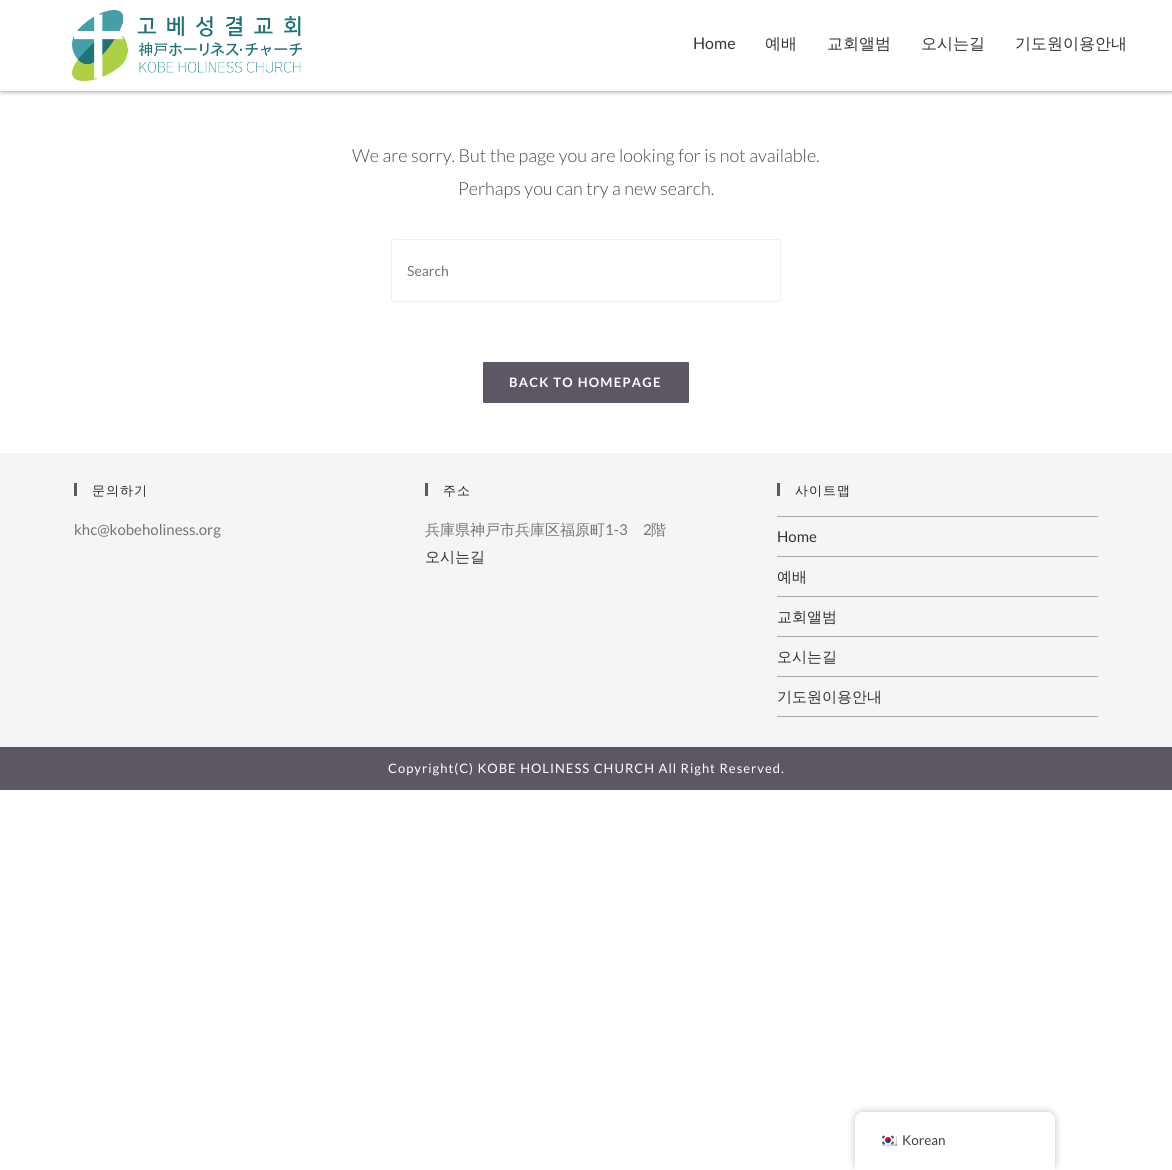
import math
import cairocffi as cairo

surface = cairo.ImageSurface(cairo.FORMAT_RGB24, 1172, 1170)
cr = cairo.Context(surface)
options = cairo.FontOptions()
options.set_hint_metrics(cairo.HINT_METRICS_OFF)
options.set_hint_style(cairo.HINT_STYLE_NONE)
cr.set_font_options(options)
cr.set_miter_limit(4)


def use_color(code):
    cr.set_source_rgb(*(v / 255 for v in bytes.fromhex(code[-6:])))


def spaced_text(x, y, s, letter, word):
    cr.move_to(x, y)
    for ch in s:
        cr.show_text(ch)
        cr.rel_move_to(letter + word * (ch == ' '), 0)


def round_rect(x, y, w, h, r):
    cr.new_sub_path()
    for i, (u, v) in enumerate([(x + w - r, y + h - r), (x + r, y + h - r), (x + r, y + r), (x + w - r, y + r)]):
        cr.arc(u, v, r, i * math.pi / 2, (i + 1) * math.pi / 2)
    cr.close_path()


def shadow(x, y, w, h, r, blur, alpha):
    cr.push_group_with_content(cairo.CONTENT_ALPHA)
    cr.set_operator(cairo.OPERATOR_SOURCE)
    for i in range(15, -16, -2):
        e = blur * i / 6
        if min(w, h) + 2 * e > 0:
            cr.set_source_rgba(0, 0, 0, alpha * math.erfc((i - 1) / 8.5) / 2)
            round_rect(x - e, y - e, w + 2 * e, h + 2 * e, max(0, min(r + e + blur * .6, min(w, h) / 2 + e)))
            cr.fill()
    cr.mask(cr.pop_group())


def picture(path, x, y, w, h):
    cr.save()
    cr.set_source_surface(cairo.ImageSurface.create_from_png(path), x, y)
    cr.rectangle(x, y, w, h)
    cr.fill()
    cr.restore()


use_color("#ffffff")
cr.paint()
use_color("#000000")
shadow(1, 0, 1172, 91, 0, 2.5, 0.5)
use_color("#ffffff")
cr.rectangle(0, 0, 1172, 91)
cr.fill()
picture("img1.png", 72, 10, 230, 71)
cr.select_font_face("Lato")
cr.set_font_size(16)
use_color("#3c3232")
cr.move_to(693, 49)
cr.show_text("Home")
cr.select_font_face("WenQuanYi Zen Hei Medium")
cr.move_to(765, 49)
cr.show_text("예배")
cr.move_to(827, 49)
cr.show_text("교회앨범")
cr.move_to(921, 49)
cr.show_text("오시는길")
cr.move_to(1015, 49)
cr.show_text("기도원이용안내")
cr.select_font_face("Lato Light")
cr.set_font_size(18)
use_color("#4a4a4a")
cr.move_to(352, 162)
cr.show_text("We are sorry. But the page you are looking for is not available.")
cr.move_to(458, 195)
cr.show_text("Perhaps you can try a new search.")
round_rect(391.5, 239.5, 389, 62, 2.5)
use_color("#eeeeee")
cr.set_line_width(1)
cr.stroke()
cr.select_font_face("Lato")
cr.set_font_size(14)
use_color("#757575")
cr.move_to(407, 276)
cr.show_text("Search")
use_color("#5c5763")
round_rect(483, 362, 206, 41, 1)
cr.fill()
cr.select_font_face("Lato", cairo.FONT_SLANT_NORMAL, cairo.FONT_WEIGHT_BOLD)
cr.set_font_size(13)
use_color("#ffffff")
spaced_text(509, 387, "BACK TO HOMEPAGE", 1.25, 0)
use_color("#f5f5f5")
cr.rectangle(0, 453, 1172, 294)
cr.fill()
use_color("#5c5763")
cr.rectangle(74, 483, 3, 13)
cr.fill()
cr.select_font_face("WenQuanYi Zen Hei Medium")
use_color("#292929")
spaced_text(92, 495, "문의하기", 1, 0)
cr.select_font_face("Lato")
cr.set_font_size(15)
use_color("#757575")
cr.move_to(74, 535)
cr.show_text("khc@kobeholiness.org")
use_color("#5c5763")
cr.rectangle(425, 483, 3, 13)
cr.fill()
cr.select_font_face("WenQuanYi Zen Hei Medium")
cr.set_font_size(13)
use_color("#292929")
spaced_text(443, 495, "주소", 1, 0)
cr.set_font_size(15)
use_color("#757575")
cr.move_to(425, 535)
cr.show_text("兵庫県神戸市兵庫区福原町")
cr.select_font_face("Lato")
cr.move_to(605, 535)
cr.show_text("1-3")
cr.move_to(643, 535)
cr.show_text("2")
cr.select_font_face("WenQuanYi Zen Hei Medium")
cr.move_to(651, 535)
cr.show_text("階")
use_color("#333333")
cr.move_to(425, 562)
cr.show_text("오시는길")
use_color("#5c5763")
cr.rectangle(777, 483, 3, 13)
cr.fill()
cr.set_font_size(13)
use_color("#292929")
spaced_text(795, 495, "사이트맵", 1, 0)
use_color("#aaaaaa")
cr.rectangle(777, 516, 321, 1)
cr.fill()
cr.rectangle(777, 556, 321, 1)
cr.fill()
cr.select_font_face("Lato")
cr.set_font_size(15)
use_color("#333333")
cr.move_to(777, 542)
cr.show_text("Home")
use_color("#aaaaaa")
cr.rectangle(777, 596, 321, 1)
cr.fill()
cr.select_font_face("WenQuanYi Zen Hei Medium")
use_color("#333333")
cr.move_to(777, 582)
cr.show_text("예배")
use_color("#aaaaaa")
cr.rectangle(777, 636, 321, 1)
cr.fill()
use_color("#333333")
cr.move_to(777, 622)
cr.show_text("교회앨범")
use_color("#aaaaaa")
cr.rectangle(777, 676, 321, 1)
cr.fill()
use_color("#333333")
cr.move_to(777, 662)
cr.show_text("오시는길")
use_color("#aaaaaa")
cr.rectangle(777, 716, 321, 1)
cr.fill()
use_color("#333333")
cr.move_to(777, 702)
cr.show_text("기도원이용안내")
use_color("#5c5763")
cr.rectangle(0, 747, 1172, 43)
cr.fill()
cr.select_font_face("Lato")
cr.set_font_size(13)
use_color("#ffffff")
spaced_text(388, 773, "Copyright(C) KOBE HOLINESS CHURCH All Right Reserved.", 1, 0)
use_color("#000000")
shadow(855, 1112, 200, 58, 8, 4, 0.25)
use_color("#ffffff")
cr.new_path()
cr.move_to(863, 1112)
cr.line_to(1047, 1112)
cr.curve_to(1051.5, 1112, 1055, 1115.5, 1055, 1120)
cr.line_to(1055, 1170)
cr.line_to(855, 1170)
cr.line_to(855, 1120)
cr.curve_to(855, 1115.5, 858.5, 1112, 863, 1112)
cr.close_path()
cr.fill()
picture("img2.png", 881, 1135, 16, 11)
cr.set_font_size(13.5)
use_color("#404040")
cr.move_to(902, 1145)
cr.show_text("Korean")
surface.write_to_png("result.png")
